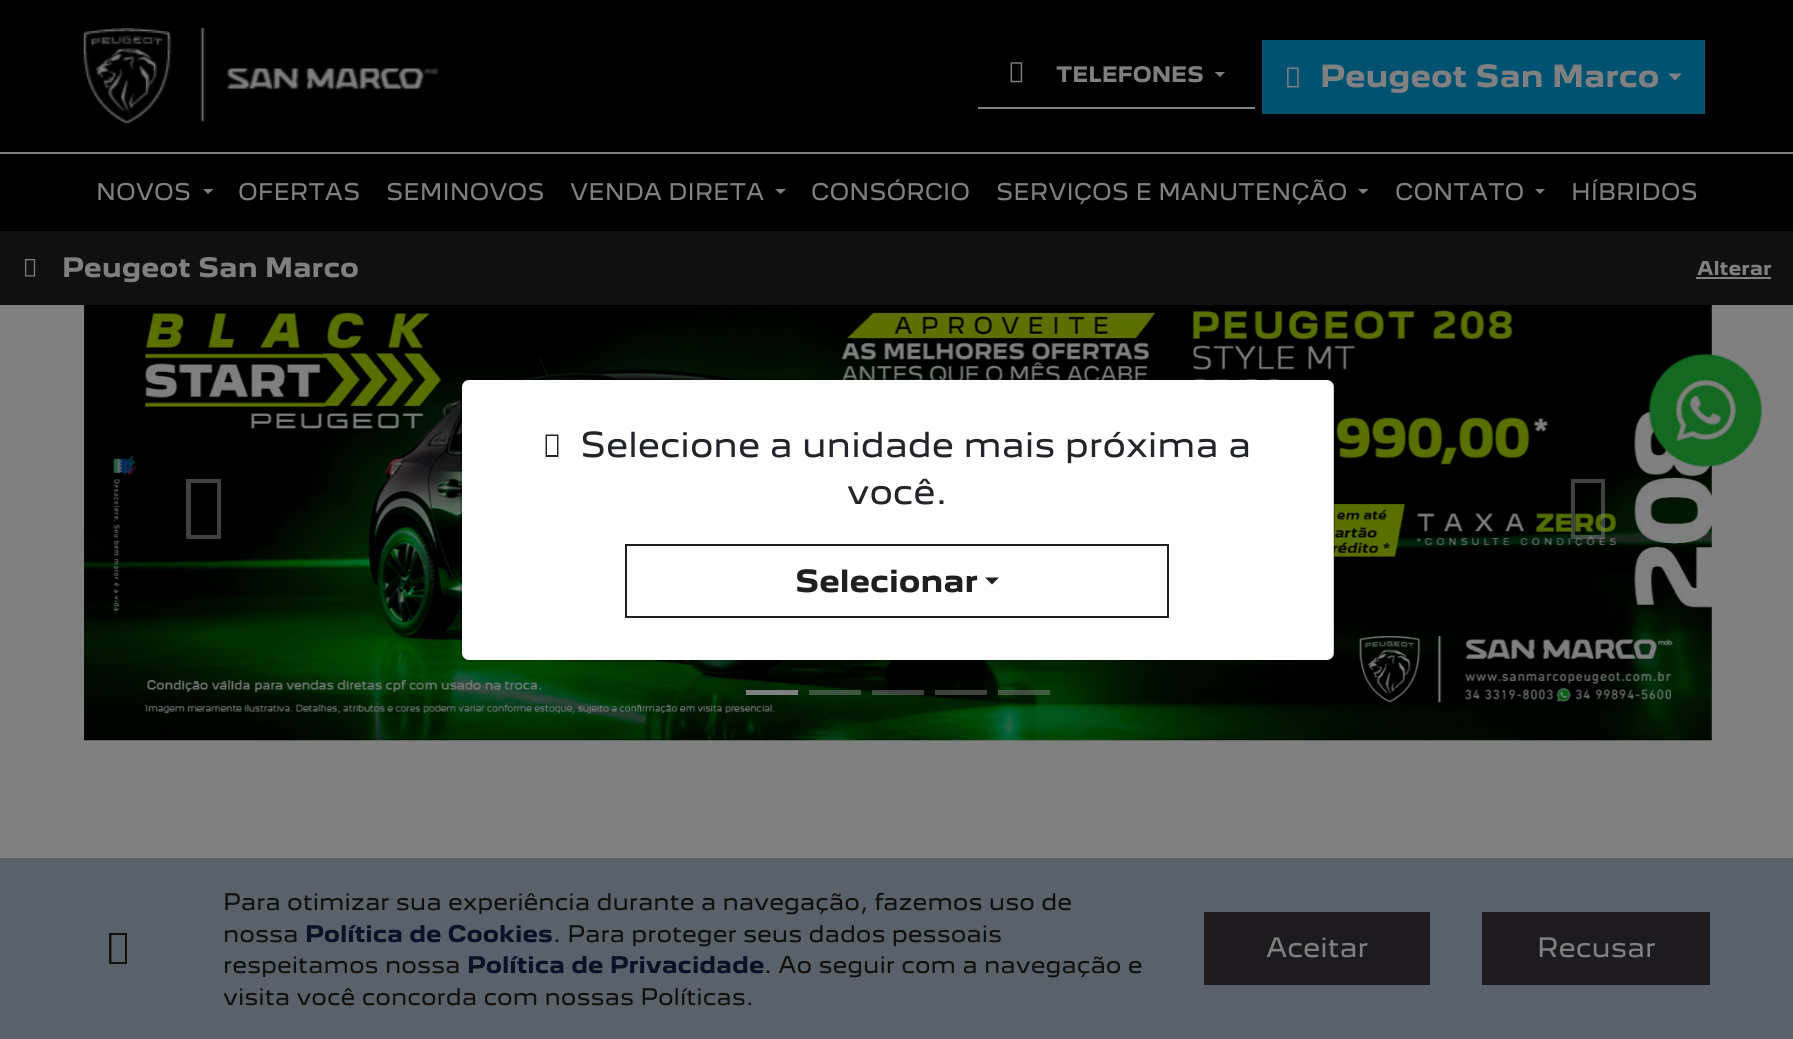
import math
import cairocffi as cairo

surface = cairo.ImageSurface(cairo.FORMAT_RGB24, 1793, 1039)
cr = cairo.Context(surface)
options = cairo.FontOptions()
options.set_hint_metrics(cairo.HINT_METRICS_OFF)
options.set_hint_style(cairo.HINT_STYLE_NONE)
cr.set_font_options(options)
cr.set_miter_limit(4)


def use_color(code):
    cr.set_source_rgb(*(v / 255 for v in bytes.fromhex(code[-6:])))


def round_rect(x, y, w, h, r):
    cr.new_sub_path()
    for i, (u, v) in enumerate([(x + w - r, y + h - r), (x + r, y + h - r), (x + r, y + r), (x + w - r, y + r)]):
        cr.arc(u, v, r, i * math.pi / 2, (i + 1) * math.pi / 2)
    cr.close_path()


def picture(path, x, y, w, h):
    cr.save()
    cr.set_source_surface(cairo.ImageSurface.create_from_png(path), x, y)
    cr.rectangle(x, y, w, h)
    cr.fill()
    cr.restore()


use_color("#808080")
cr.paint()
use_color("#000000")
cr.rectangle(0, 0, 1793, 152)
cr.fill()
picture("img1.png", 83, 28, 356, 97)
use_color("#808080")
cr.rectangle(978, 107, 277, 2)
cr.fill()
picture("img2.png", 1010, 62, 13, 21)
cr.select_font_face("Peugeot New", cairo.FONT_SLANT_NORMAL, cairo.FONT_WEIGHT_BOLD)
cr.set_font_size(19.5)
cr.move_to(1056, 82)
cr.show_text("TELEFONES")
cr.new_path()
cr.move_to(1214.5, 72)
cr.line_to(1225, 72)
cr.line_to(1220, 77)
cr.close_path()
cr.fill()
use_color("#005270")
cr.rectangle(1262, 40, 443, 74)
cr.fill()
picture("img3.png", 1287, 67, 12, 21)
cr.set_font_size(28)
use_color("#808080")
cr.move_to(1320, 87)
cr.show_text("Peugeot San Marco")
cr.new_path()
cr.move_to(1668, 73.5)
cr.line_to(1682, 73.5)
cr.line_to(1675, 80.5)
cr.close_path()
cr.fill()
use_color("#000000")
cr.rectangle(0, 154, 1793, 77)
cr.fill()
cr.select_font_face("Peugeot New")
cr.set_font_size(21)
use_color("#808080")
cr.move_to(96, 200)
cr.show_text("NOVOS")
cr.new_path()
cr.move_to(203, 189)
cr.line_to(213.5, 189)
cr.line_to(208, 194)
cr.close_path()
cr.fill()
cr.move_to(238, 200)
cr.show_text("OFERTAS")
cr.move_to(386, 200)
cr.show_text("SEMINOVOS")
cr.move_to(570, 200)
cr.show_text("VENDA DIRETA")
cr.new_path()
cr.move_to(775, 189)
cr.line_to(786, 189)
cr.line_to(780.5, 194)
cr.close_path()
cr.fill()
cr.move_to(811, 200)
cr.show_text("CONSÓRCIO")
cr.move_to(996, 200)
cr.show_text("SERVIÇOS E MANUTENÇÃO")
cr.new_path()
cr.move_to(1358, 189)
cr.line_to(1368.5, 189)
cr.line_to(1363, 194)
cr.close_path()
cr.fill()
cr.move_to(1395, 200)
cr.show_text("CONTATO")
cr.new_path()
cr.move_to(1535, 189)
cr.line_to(1545, 189)
cr.line_to(1540, 194)
cr.close_path()
cr.fill()
cr.move_to(1571, 200)
cr.show_text("HÍBRIDOS")
use_color("#101010")
cr.rectangle(0, 231, 1793, 74)
cr.fill()
picture("img4.png", 25, 259, 11, 18)
cr.select_font_face("Peugeot New", cairo.FONT_SLANT_NORMAL, cairo.FONT_WEIGHT_BOLD)
cr.set_font_size(24.5)
use_color("#808080")
cr.move_to(62, 277)
cr.show_text("Peugeot San Marco")
cr.set_font_size(17.5)
cr.move_to(1697, 275)
cr.show_text("Alterar")
cr.rectangle(1696, 277, 75, 2)
cr.fill()
picture("img5.png", 84, 305, 1628, 436)
use_color("#404040")
cr.new_path()
cr.move_to(186, 539)
cr.line_to(186, 479)
cr.line_to(221, 479)
cr.line_to(221, 539)
cr.close_path()
cr.move_to(191, 535)
cr.line_to(217, 535)
cr.line_to(217, 483)
cr.line_to(191, 483)
cr.close_path()
cr.fill()
cr.set_source_rgba(0.502, 0.502, 0.502, 0.5)
cr.new_path()
cr.move_to(1571, 539)
cr.line_to(1571, 479)
cr.line_to(1605, 479)
cr.line_to(1605, 539)
cr.close_path()
cr.move_to(1575, 535)
cr.line_to(1601, 535)
cr.line_to(1601, 483)
cr.line_to(1575, 483)
cr.close_path()
cr.fill()
use_color("#808080")
cr.rectangle(746, 690, 52, 5)
cr.fill()
cr.set_source_rgba(0.502, 0.502, 0.502, 0.5)
cr.rectangle(809, 690, 52, 5)
cr.fill()
cr.rectangle(872, 690, 52, 5)
cr.fill()
cr.rectangle(935, 690, 52, 5)
cr.fill()
cr.rectangle(998, 690, 52, 5)
cr.fill()
picture("img6.png", 1648, 353, 114, 114)
use_color("#ffffff")
round_rect(462, 380, 872, 280, 7)
cr.fill()
round_rect(461, 379, 873, 282, 8)
cr.set_source_rgba(0, 0, 0, 0.2)
cr.stroke()
use_color("#212529")
cr.new_path()
cr.move_to(545.5, 457)
cr.line_to(545.5, 434.5)
cr.line_to(558.5, 434.5)
cr.line_to(558.5, 457)
cr.close_path()
cr.move_to(547, 455)
cr.line_to(557, 455)
cr.line_to(557, 436)
cr.line_to(547, 436)
cr.close_path()
cr.fill()
cr.select_font_face("Peugeot New")
cr.set_font_size(31.5)
cr.move_to(580, 457)
cr.show_text("Selecione a unidade mais próxima a")
cr.move_to(847, 504)
cr.show_text("você.")
cr.rectangle(626, 545, 542, 72)
use_color("#1f1f1f")
cr.stroke()
cr.select_font_face("Peugeot New", cairo.FONT_SLANT_NORMAL, cairo.FONT_WEIGHT_BOLD)
cr.set_font_size(28)
cr.move_to(795, 592)
cr.show_text("Selecionar")
cr.new_path()
cr.move_to(985, 577.5)
cr.line_to(999, 577.5)
cr.line_to(992, 584.5)
cr.close_path()
cr.fill()
use_color("#59626b")
cr.rectangle(0, 858, 1793, 181)
cr.fill()
use_color("#101010")
cr.new_path()
cr.move_to(109, 964)
cr.line_to(109, 933)
cr.line_to(127, 933)
cr.line_to(127, 964)
cr.close_path()
cr.move_to(111.5, 962)
cr.line_to(125, 962)
cr.line_to(125, 935)
cr.line_to(111.5, 935)
cr.close_path()
cr.fill()
cr.select_font_face("Peugeot New")
cr.set_font_size(21)
cr.move_to(223, 910)
cr.show_text("Para otimizar sua experiência durante a navegação, fazemos uso de")
cr.move_to(223, 942)
cr.show_text("nossa")
cr.select_font_face("Peugeot New", cairo.FONT_SLANT_NORMAL, cairo.FONT_WEIGHT_BOLD)
use_color("#091226")
cr.move_to(305, 942)
cr.show_text("Política de Cookies")
cr.select_font_face("Peugeot New")
use_color("#101010")
cr.move_to(553, 942)
cr.show_text(". Para proteger seus dados pessoais")
cr.move_to(223, 973)
cr.show_text("respeitamos nossa")
cr.select_font_face("Peugeot New", cairo.FONT_SLANT_NORMAL, cairo.FONT_WEIGHT_BOLD)
use_color("#091226")
cr.move_to(467, 973)
cr.show_text("Política de Privacidade")
cr.select_font_face("Peugeot New")
use_color("#101010")
cr.move_to(764, 973)
cr.show_text(". Ao seguir com a navegação e")
cr.move_to(223, 1005)
cr.show_text("visita você concorda com nossas Políticas.")
use_color("#1e1b20")
cr.rectangle(1204, 912, 226, 73)
cr.fill()
cr.set_font_size(24.5)
use_color("#808080")
cr.move_to(1266, 957)
cr.show_text("Aceitar")
use_color("#1e1b20")
cr.rectangle(1482, 912, 228, 73)
cr.fill()
use_color("#808080")
cr.move_to(1537, 957)
cr.show_text("Recusar")
surface.write_to_png("result.png")
